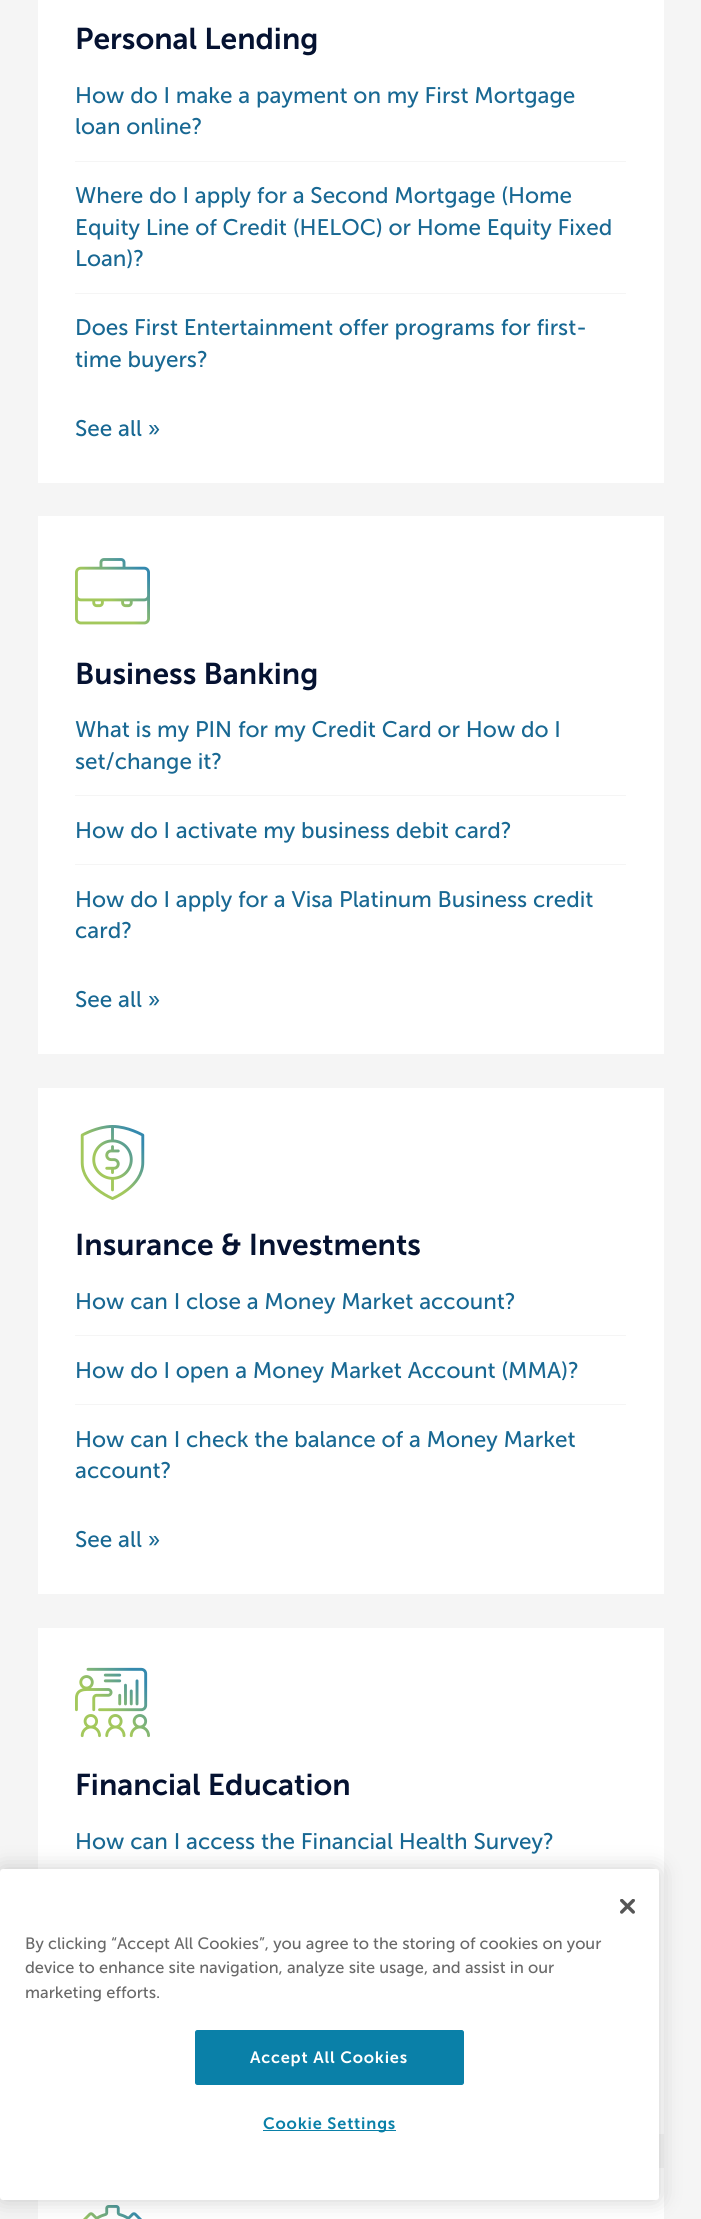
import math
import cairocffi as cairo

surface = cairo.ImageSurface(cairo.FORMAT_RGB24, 701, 2219)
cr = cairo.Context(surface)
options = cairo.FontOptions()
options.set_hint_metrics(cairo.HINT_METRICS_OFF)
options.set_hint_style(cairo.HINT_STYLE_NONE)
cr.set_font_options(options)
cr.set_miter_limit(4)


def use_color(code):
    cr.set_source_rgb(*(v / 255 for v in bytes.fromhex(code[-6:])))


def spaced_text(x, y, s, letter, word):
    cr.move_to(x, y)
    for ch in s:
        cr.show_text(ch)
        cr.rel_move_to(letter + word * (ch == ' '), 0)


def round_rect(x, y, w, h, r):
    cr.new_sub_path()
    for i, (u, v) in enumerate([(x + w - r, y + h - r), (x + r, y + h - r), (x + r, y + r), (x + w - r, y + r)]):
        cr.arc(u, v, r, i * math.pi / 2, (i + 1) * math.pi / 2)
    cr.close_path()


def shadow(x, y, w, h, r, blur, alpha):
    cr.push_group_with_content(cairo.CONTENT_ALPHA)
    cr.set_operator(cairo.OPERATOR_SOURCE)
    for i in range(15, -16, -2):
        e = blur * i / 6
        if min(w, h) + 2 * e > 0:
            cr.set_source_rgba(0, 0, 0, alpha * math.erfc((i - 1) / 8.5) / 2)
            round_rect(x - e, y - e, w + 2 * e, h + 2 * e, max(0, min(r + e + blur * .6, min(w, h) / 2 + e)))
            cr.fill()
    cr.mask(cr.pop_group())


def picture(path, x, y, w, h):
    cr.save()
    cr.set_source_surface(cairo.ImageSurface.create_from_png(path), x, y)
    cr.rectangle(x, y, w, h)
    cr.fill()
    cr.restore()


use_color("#f5f5f5")
cr.paint()
use_color("#ffffff")
cr.rectangle(38, 0, 626, 483)
cr.fill()
cr.select_font_face("Museo Sans SemiBold")
cr.set_font_size(30)
use_color("#051231")
cr.move_to(75, 49)
cr.show_text("Personal Lending")
cr.select_font_face("Museo Sans")
cr.set_font_size(22.5)
use_color("#186893")
cr.move_to(75, 103)
cr.show_text("How do I make a payment on my First Mortgage")
cr.move_to(75, 134)
cr.show_text("loan online?")
use_color("#f5f5f5")
cr.rectangle(75, 161, 551, 1)
cr.fill()
use_color("#186893")
cr.move_to(75, 203)
cr.show_text("Where do I apply for a Second Mortgage (Home")
cr.move_to(75, 235)
cr.show_text("Equity Line of Credit (HELOC) or Home Equity Fixed")
cr.move_to(75, 266)
cr.show_text("Loan)?")
use_color("#f5f5f5")
cr.rectangle(75, 293, 551, 1)
cr.fill()
use_color("#186893")
cr.move_to(75, 335)
cr.show_text("Does First Entertainment offer programs for first-")
cr.move_to(75, 367)
cr.show_text("time buyers?")
cr.move_to(75, 436)
cr.show_text("See all »")
use_color("#ffffff")
cr.rectangle(38, 516, 626, 538)
cr.fill()
picture("img1.png", 75, 558, 75, 67)
cr.select_font_face("Museo Sans SemiBold")
cr.set_font_size(30)
use_color("#051231")
cr.move_to(75, 684)
cr.show_text("Business Banking")
cr.select_font_face("Museo Sans")
cr.set_font_size(22.5)
use_color("#186893")
cr.move_to(75, 737)
cr.show_text("What is my PIN for my Credit Card or How do I")
cr.move_to(75, 769)
cr.show_text("set/change it?")
use_color("#f5f5f5")
cr.rectangle(75, 795, 551, 1)
cr.fill()
use_color("#186893")
cr.move_to(75, 838)
cr.show_text("How do I activate my business debit card?")
use_color("#f5f5f5")
cr.rectangle(75, 864, 551, 1)
cr.fill()
use_color("#186893")
cr.move_to(75, 907)
cr.show_text("How do I apply for a Visa Platinum Business credit")
cr.move_to(75, 938)
cr.show_text("card?")
cr.move_to(75, 1007)
cr.show_text("See all »")
use_color("#ffffff")
cr.rectangle(38, 1088, 626, 506)
cr.fill()
picture("img2.png", 80, 1125, 65, 75)
cr.select_font_face("Museo Sans SemiBold")
cr.set_font_size(30)
use_color("#051231")
cr.move_to(75, 1255)
cr.show_text("Insurance & Investments")
cr.select_font_face("Museo Sans")
cr.set_font_size(22.5)
use_color("#186893")
cr.move_to(75, 1309)
cr.show_text("How can I close a Money Market account?")
use_color("#f5f5f5")
cr.rectangle(75, 1335, 551, 1)
cr.fill()
use_color("#186893")
cr.move_to(75, 1378)
cr.show_text("How do I open a Money Market Account (MMA)?")
use_color("#f5f5f5")
cr.rectangle(75, 1404, 551, 1)
cr.fill()
use_color("#186893")
cr.move_to(75, 1447)
cr.show_text("How can I check the balance of a Money Market")
cr.move_to(75, 1478)
cr.show_text("account?")
cr.move_to(75, 1547)
cr.show_text("See all »")
use_color("#ffffff")
cr.rectangle(38, 1628, 626, 506)
cr.fill()
picture("img3.png", 75, 1667, 75, 71)
cr.select_font_face("Museo Sans SemiBold")
cr.set_font_size(30)
use_color("#051231")
cr.move_to(75, 1795)
cr.show_text("Financial Education")
cr.select_font_face("Museo Sans")
cr.set_font_size(22.5)
use_color("#186893")
cr.move_to(75, 1849)
cr.show_text("How can I access the Financial Health Survey?")
use_color("#ffffff")
cr.rectangle(38, 2168, 626, 51)
cr.fill()
picture("img4.png", 83, 2205, 59, 14)
use_color("#000000")
shadow(0, 1869, 659, 331, 3, 11, 0.2)
use_color("#ffffff")
round_rect(0, 1869, 659, 331, 3)
cr.fill()
picture("img5.png", 620, 1899, 15, 15)
cr.set_font_size(16.4)
use_color("#696969")
cr.move_to(25, 1949)
cr.show_text("By clicking “Accept All Cookies”, you agree to the storing of cookies on your")
cr.move_to(25, 1973)
cr.show_text("device to enhance site navigation, analyze site usage, and assist in our")
cr.move_to(25, 1998)
cr.show_text("marketing efforts.")
use_color("#0a80a8")
round_rect(195.5, 2030.5, 268, 54, 2)
cr.fill_preserve()
cr.set_line_width(1)
cr.stroke()
cr.select_font_face("Museo Sans SemiBold")
use_color("#ffffff")
spaced_text(250, 2063, "Accept All Cookies", 0.8, 0)
use_color("#0a80a8")
cr.rectangle(263, 2130, 133, 1)
cr.fill()
spaced_text(263, 2129, "Cookie Settings", 0.8, 0)
surface.write_to_png("result.png")
